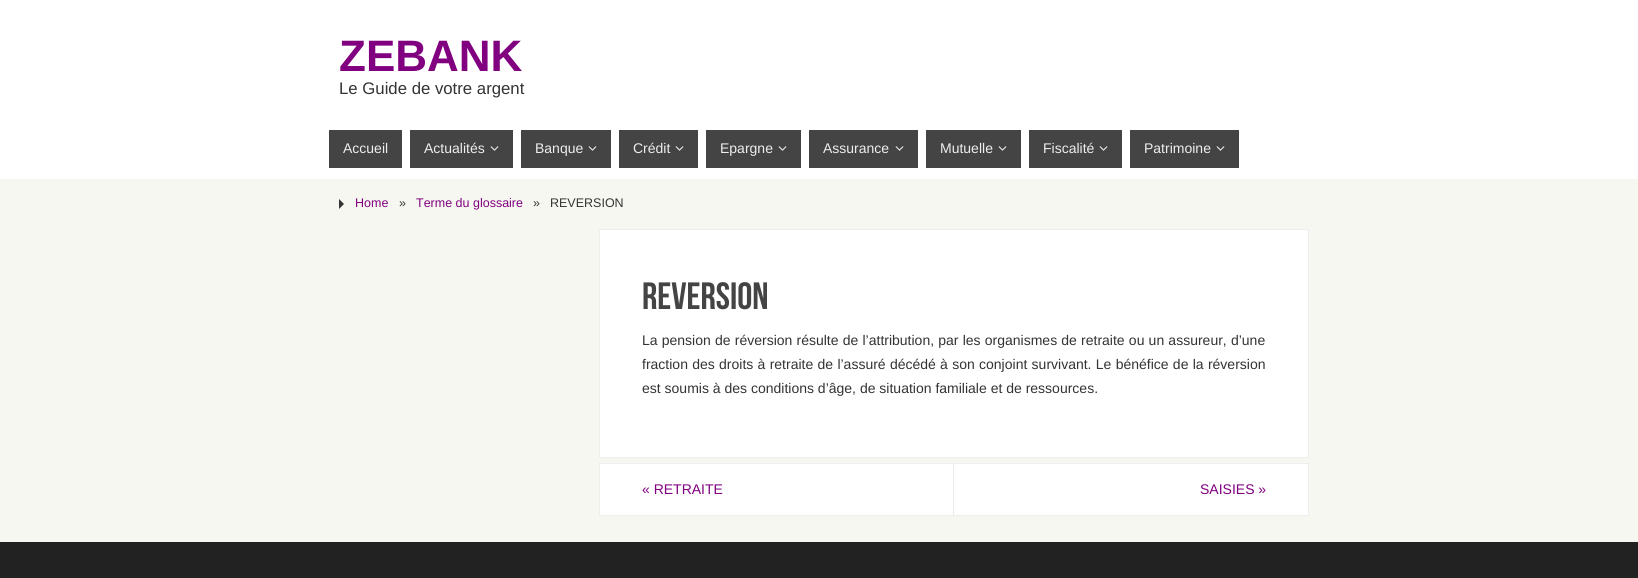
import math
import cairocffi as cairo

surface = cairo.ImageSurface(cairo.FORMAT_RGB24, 1638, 578)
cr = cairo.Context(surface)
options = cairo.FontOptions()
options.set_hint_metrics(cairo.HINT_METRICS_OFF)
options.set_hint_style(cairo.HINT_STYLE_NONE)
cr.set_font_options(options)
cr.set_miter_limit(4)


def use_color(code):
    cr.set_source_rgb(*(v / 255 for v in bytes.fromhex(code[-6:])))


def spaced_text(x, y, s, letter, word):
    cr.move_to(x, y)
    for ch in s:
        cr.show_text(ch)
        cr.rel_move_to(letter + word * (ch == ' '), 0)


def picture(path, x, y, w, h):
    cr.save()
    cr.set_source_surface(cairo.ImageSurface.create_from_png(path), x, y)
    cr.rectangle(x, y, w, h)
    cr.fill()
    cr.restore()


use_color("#f7f7f2")
cr.paint()
use_color("#ffffff")
cr.rectangle(0, 0, 1638, 179)
cr.fill()
cr.select_font_face("Liberation Sans", cairo.FONT_SLANT_NORMAL, cairo.FONT_WEIGHT_BOLD)
cr.set_font_size(44)
use_color("#800080")
cr.move_to(339, 71)
cr.show_text("ZEBANK")
cr.select_font_face("Liberation Sans")
cr.set_font_size(16.75)
use_color("#333333")
cr.move_to(339, 94)
cr.show_text("Le Guide de votre argent")
use_color("#444444")
cr.rectangle(329, 130, 73, 38)
cr.fill()
cr.set_font_size(14)
use_color("#eeeeee")
cr.move_to(343, 153)
cr.show_text("Accueil")
use_color("#444444")
cr.rectangle(410, 130, 103, 38)
cr.fill()
use_color("#eeeeee")
cr.move_to(424, 153)
cr.show_text("Actualités")
picture("img1.png", 490, 146, 9, 5)
use_color("#444444")
cr.rectangle(521, 130, 90, 38)
cr.fill()
use_color("#eeeeee")
cr.move_to(535, 153)
cr.show_text("Banque")
picture("img1.png", 588, 146, 9, 5)
use_color("#444444")
cr.rectangle(619, 130, 79, 38)
cr.fill()
use_color("#eeeeee")
cr.move_to(633, 153)
cr.show_text("Crédit")
picture("img1.png", 675, 146, 9, 5)
use_color("#444444")
cr.rectangle(706, 130, 95, 38)
cr.fill()
use_color("#eeeeee")
cr.move_to(720, 153)
cr.show_text("Epargne")
picture("img1.png", 778, 146, 9, 5)
use_color("#444444")
cr.rectangle(809, 130, 109, 38)
cr.fill()
use_color("#eeeeee")
cr.move_to(823, 153)
cr.show_text("Assurance")
picture("img1.png", 895, 146, 9, 5)
use_color("#444444")
cr.rectangle(926, 130, 95, 38)
cr.fill()
use_color("#eeeeee")
cr.move_to(940, 153)
cr.show_text("Mutuelle")
picture("img1.png", 998, 146, 9, 5)
use_color("#444444")
cr.rectangle(1029, 130, 93, 38)
cr.fill()
use_color("#eeeeee")
cr.move_to(1043, 153)
cr.show_text("Fiscalité")
picture("img1.png", 1099, 146, 9, 5)
use_color("#444444")
cr.rectangle(1130, 130, 109, 38)
cr.fill()
use_color("#eeeeee")
cr.move_to(1144, 153)
cr.show_text("Patrimoine")
picture("img1.png", 1216, 146, 9, 5)
use_color("#333333")
cr.new_path()
cr.move_to(339, 209)
cr.line_to(339, 199)
cr.line_to(344, 204)
cr.close_path()
cr.fill()
cr.set_font_size(12.5)
use_color("#800080")
cr.move_to(355, 207)
cr.show_text("Home")
use_color("#333333")
cr.move_to(399, 207)
cr.show_text("»")
use_color("#800080")
cr.move_to(416, 207)
cr.show_text("Terme du glossaire")
use_color("#333333")
cr.move_to(533, 207)
cr.show_text("»")
cr.move_to(550, 207)
cr.show_text("REVERSION")
use_color("#ffffff")
cr.rectangle(599.5, 229.5, 709, 228)
cr.fill_preserve()
use_color("#eeeeee")
cr.set_line_width(1)
cr.stroke()
cr.select_font_face("Bebas Neue")
cr.set_font_size(38)
use_color("#444444")
cr.move_to(642, 309)
cr.show_text("REVERSION")
cr.select_font_face("Liberation Sans")
cr.set_font_size(14)
use_color("#333333")
spaced_text(642, 345, "La pension de réversion résulte de l’attribution, par les organismes de retraite ou un assureur, d’une", 0, 0.3)
spaced_text(642, 369, "fraction des droits à retraite de l’assuré décédé à son conjoint survivant. Le bénéfice de la réversion", 0, 0.4)
cr.move_to(642, 393)
cr.show_text("est soumis à des conditions d’âge, de situation familiale et de ressources.")
use_color("#ffffff")
cr.rectangle(599.5, 463.5, 709, 52)
cr.fill_preserve()
use_color("#eeeeee")
cr.stroke()
use_color("#ebebeb")
cr.rectangle(953, 464, 1, 51)
cr.fill()
use_color("#800080")
cr.move_to(642, 494)
cr.show_text("« RETRAITE")
cr.move_to(1200, 494)
cr.show_text("SAISIES »")
use_color("#222222")
cr.rectangle(0, 542, 1638, 36)
cr.fill()
surface.write_to_png("result.png")
